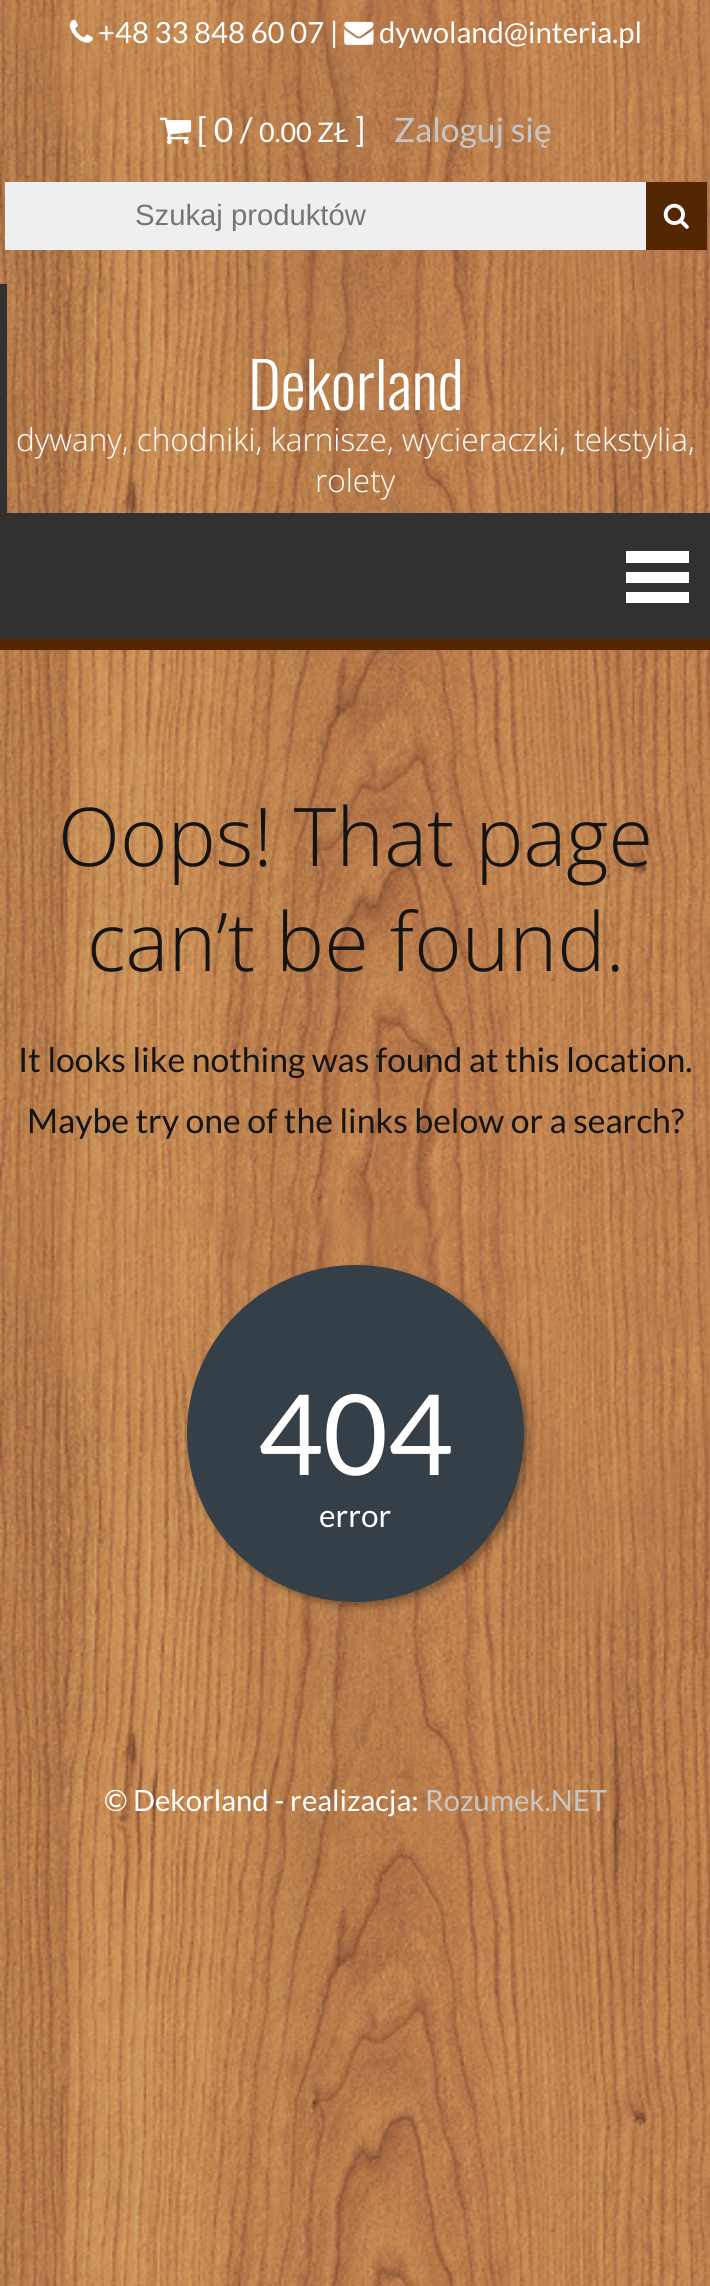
import math
import cairocffi as cairo

surface = cairo.ImageSurface(cairo.FORMAT_RGB24, 710, 2286)
cr = cairo.Context(surface)
options = cairo.FontOptions()
options.set_hint_metrics(cairo.HINT_METRICS_OFF)
options.set_hint_style(cairo.HINT_STYLE_NONE)
cr.set_font_options(options)
cr.set_miter_limit(4)


def use_color(code):
    cr.set_source_rgb(*(v / 255 for v in bytes.fromhex(code[-6:])))


def round_rect(x, y, w, h, r):
    cr.new_sub_path()
    for i, (u, v) in enumerate([(x + w - r, y + h - r), (x + r, y + h - r), (x + r, y + r), (x + w - r, y + r)]):
        cr.arc(u, v, r, i * math.pi / 2, (i + 1) * math.pi / 2)
    cr.close_path()


def shadow(x, y, w, h, r, blur, alpha):
    cr.push_group_with_content(cairo.CONTENT_ALPHA)
    cr.set_operator(cairo.OPERATOR_SOURCE)
    for i in range(15, -16, -2):
        e = blur * i / 6
        if min(w, h) + 2 * e > 0:
            cr.set_source_rgba(0, 0, 0, alpha * math.erfc((i - 1) / 8.5) / 2)
            round_rect(x - e, y - e, w + 2 * e, h + 2 * e, max(0, min(r + e + blur * .6, min(w, h) / 2 + e)))
            cr.fill()
    cr.mask(cr.pop_group())


def picture(path, x, y, w, h):
    cr.save()
    cr.set_source_surface(cairo.ImageSurface.create_from_png(path), x, y)
    cr.rectangle(x, y, w, h)
    cr.fill()
    cr.restore()


use_color("#ffffff")
cr.paint()
picture("img1.png", 0, 0, 710, 2286)
picture("img2.png", 69, 19, 24, 24)
cr.select_font_face("Lato")
cr.set_font_size(29.25)
use_color("#ffffff")
cr.move_to(98, 43)
cr.show_text("+48 33 848 60 07 |")
picture("img3.png", 344, 21, 30, 24)
cr.move_to(379, 43)
cr.show_text("dywoland@interia.pl")
picture("img4.png", 159, 117, 33, 28)
cr.set_font_size(33.75)
cr.move_to(197, 142)
cr.show_text("[ 0 /")
cr.set_font_size(27)
cr.move_to(259, 142)
cr.show_text("0.00 ZŁ")
cr.set_font_size(33.75)
cr.move_to(355, 142)
cr.show_text("]")
use_color("#c6c6c6")
cr.move_to(394, 142)
cr.show_text("Zaloguj się")
use_color("#efefef")
cr.rectangle(5, 182, 641, 68)
cr.fill()
cr.select_font_face("Liberation Sans")
cr.set_font_size(29.25)
use_color("#757575")
cr.move_to(135, 225)
cr.show_text("Szukaj produktów")
use_color("#522701")
cr.rectangle(646, 182, 61, 68)
cr.fill()
picture("img5.png", 663, 203, 26, 26)
cr.rectangle(0, 639, 710, 11)
cr.fill()
use_color("#313131")
cr.rectangle(7, 513, 703, 126)
cr.fill()
cr.rectangle(0, 284, 7, 355)
cr.fill()
use_color("#ffffff")
cr.rectangle(626, 551, 63, 12)
cr.fill()
cr.rectangle(626, 572, 63, 11)
cr.fill()
cr.rectangle(626, 592, 63, 11)
cr.fill()
cr.select_font_face("Oswald Light")
cr.set_font_size(63)
cr.move_to(248, 410)
cr.show_text("Dekorland")
cr.select_font_face("Open Sans Light")
cr.set_font_size(31.5)
cr.move_to(16, 451)
cr.show_text("dywany, chodniki, karnisze, wycieraczki, tekstylia,")
cr.move_to(315, 492)
cr.show_text("rolety")
cr.set_font_size(81)
use_color("#141414")
cr.move_to(58, 866)
cr.show_text("Oops! That page")
cr.move_to(87, 971)
cr.show_text("can’t be found.")
cr.select_font_face("Lato")
cr.set_font_size(33.75)
cr.move_to(18, 1072)
cr.show_text("It looks like nothing was found at this location.")
cr.move_to(27, 1133)
cr.show_text("Maybe try one of the links below or a search?")
use_color("#000000")
shadow(191, 1269, 338, 338, 169, 3.5, 0.3)
use_color("#353f47")
cr.arc(355.5, 1433.5, 168.5, 0, 2 * math.pi)
cr.fill()
cr.set_font_size(112)
use_color("#ffffff")
cr.move_to(258, 1475)
cr.show_text("404")
cr.set_font_size(31.5)
cr.move_to(319, 1527)
cr.show_text("error")
cr.set_font_size(29.25)
cr.move_to(104, 1811)
cr.show_text("© Dekorland - realizacja:")
use_color("#c6c6c6")
cr.move_to(425, 1811)
cr.show_text("Rozumek.NET")
surface.write_to_png("result.png")
